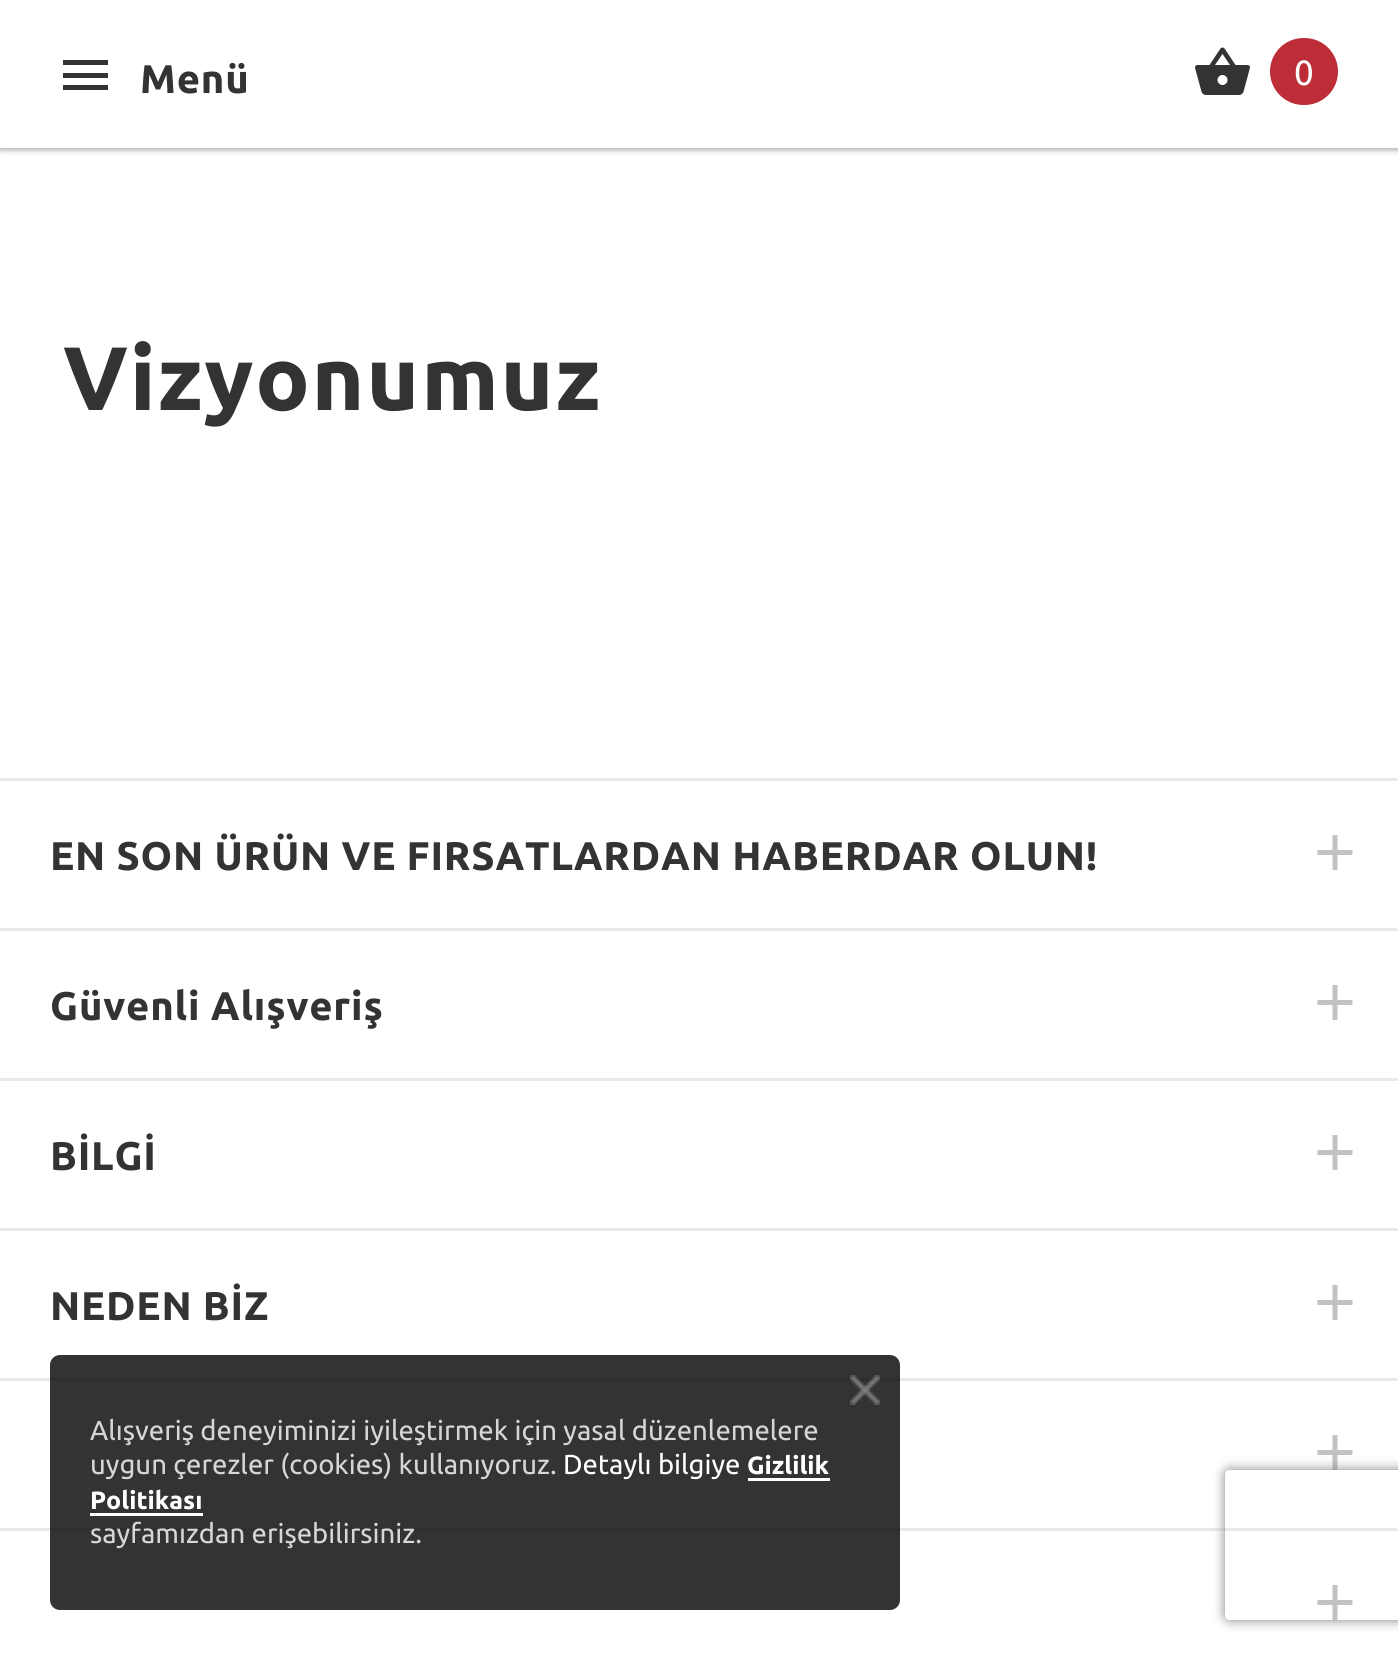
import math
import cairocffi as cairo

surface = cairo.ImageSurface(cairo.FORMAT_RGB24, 1398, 1653)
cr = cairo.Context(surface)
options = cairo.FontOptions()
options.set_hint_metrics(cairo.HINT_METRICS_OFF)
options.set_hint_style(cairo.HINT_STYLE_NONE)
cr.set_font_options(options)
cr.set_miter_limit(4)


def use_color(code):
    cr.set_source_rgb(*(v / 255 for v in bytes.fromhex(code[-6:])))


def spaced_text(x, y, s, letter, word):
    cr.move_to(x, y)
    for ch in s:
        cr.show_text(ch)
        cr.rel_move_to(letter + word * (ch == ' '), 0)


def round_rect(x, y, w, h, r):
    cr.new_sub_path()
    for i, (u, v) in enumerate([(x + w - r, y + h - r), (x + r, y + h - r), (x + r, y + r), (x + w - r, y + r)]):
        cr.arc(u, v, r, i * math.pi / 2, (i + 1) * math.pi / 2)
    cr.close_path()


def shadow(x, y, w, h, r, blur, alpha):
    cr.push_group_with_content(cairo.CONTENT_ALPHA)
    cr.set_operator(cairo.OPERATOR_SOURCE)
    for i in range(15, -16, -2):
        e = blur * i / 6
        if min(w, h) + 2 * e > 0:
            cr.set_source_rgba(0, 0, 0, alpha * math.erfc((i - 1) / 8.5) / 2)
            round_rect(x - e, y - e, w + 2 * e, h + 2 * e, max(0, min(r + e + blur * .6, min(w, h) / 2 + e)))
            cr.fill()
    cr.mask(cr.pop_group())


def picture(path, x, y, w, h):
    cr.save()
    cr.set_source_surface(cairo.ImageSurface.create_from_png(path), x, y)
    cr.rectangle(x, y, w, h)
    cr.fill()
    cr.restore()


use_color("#ffffff")
cr.paint()
use_color("#000000")
shadow(0, 3, 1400, 147, 0, 2.5, 0.24)
shadow(0, 3, 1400, 147, 0, 4, 0.12)
use_color("#ffffff")
cr.rectangle(0, 0, 1398, 148)
cr.fill()
use_color("#333333")
cr.rectangle(63, 60, 45, 5)
cr.fill()
cr.select_font_face("Ubuntu", cairo.FONT_SLANT_NORMAL, cairo.FONT_WEIGHT_BOLD)
cr.set_font_size(40)
spaced_text(140, 93, "Menü", 0.8, 0)
cr.rectangle(63, 73, 45, 5)
cr.fill()
cr.rectangle(63, 85, 45, 5)
cr.fill()
picture("img1.png", 1195, 47, 55, 48)
use_color("#bd2d37")
round_rect(1270, 38, 68, 67, 33.5)
cr.fill()
cr.select_font_face("Ubuntu")
cr.set_font_size(35)
use_color("#ffffff")
cr.move_to(1294, 85)
cr.show_text("0")
cr.select_font_face("Ubuntu", cairo.FONT_SLANT_NORMAL, cairo.FONT_WEIGHT_BOLD)
cr.set_font_size(90)
use_color("#333333")
spaced_text(63, 410, "Vizyonumuz", 1.75, 0)
use_color("#e9e9e9")
cr.rectangle(0, 778, 1398, 3)
cr.fill()
cr.rectangle(0, 928, 1398, 3)
cr.fill()
cr.set_font_size(40)
use_color("#333333")
spaced_text(50, 870, "EN SON ÜRÜN VE FIRSATLARDAN HABERDAR OLUN!", 0.8, 0)
use_color("#c2c2c2")
cr.new_path()
cr.move_to(1352.5, 855)
cr.line_to(1337.5, 855)
cr.line_to(1337.5, 870)
cr.line_to(1332.5, 870)
cr.line_to(1332.5, 855)
cr.line_to(1317.5, 855)
cr.line_to(1317.5, 850)
cr.line_to(1332.5, 850)
cr.line_to(1332.5, 835)
cr.line_to(1337.5, 835)
cr.line_to(1337.5, 850)
cr.line_to(1352.5, 850)
cr.close_path()
cr.fill()
use_color("#e9e9e9")
cr.rectangle(0, 1078, 1398, 3)
cr.fill()
use_color("#333333")
spaced_text(50, 1020, "Güvenli Alışveriş", 0.8, 0)
use_color("#c2c2c2")
cr.new_path()
cr.move_to(1352.5, 1005)
cr.line_to(1337.5, 1005)
cr.line_to(1337.5, 1020)
cr.line_to(1332.5, 1020)
cr.line_to(1332.5, 1005)
cr.line_to(1317.5, 1005)
cr.line_to(1317.5, 1000)
cr.line_to(1332.5, 1000)
cr.line_to(1332.5, 985)
cr.line_to(1337.5, 985)
cr.line_to(1337.5, 1000)
cr.line_to(1352.5, 1000)
cr.close_path()
cr.fill()
use_color("#e9e9e9")
cr.rectangle(0, 1228, 1398, 3)
cr.fill()
use_color("#333333")
spaced_text(50, 1170, "BİLGİ", 0.8, 0)
use_color("#c2c2c2")
cr.new_path()
cr.move_to(1352.5, 1155)
cr.line_to(1337.5, 1155)
cr.line_to(1337.5, 1170)
cr.line_to(1332.5, 1170)
cr.line_to(1332.5, 1155)
cr.line_to(1317.5, 1155)
cr.line_to(1317.5, 1150)
cr.line_to(1332.5, 1150)
cr.line_to(1332.5, 1135)
cr.line_to(1337.5, 1135)
cr.line_to(1337.5, 1150)
cr.line_to(1352.5, 1150)
cr.close_path()
cr.fill()
use_color("#e9e9e9")
cr.rectangle(0, 1378, 1398, 3)
cr.fill()
use_color("#333333")
spaced_text(50, 1320, "NEDEN BİZ", 0.8, 0)
use_color("#c2c2c2")
cr.new_path()
cr.move_to(1352.5, 1305)
cr.line_to(1337.5, 1305)
cr.line_to(1337.5, 1320)
cr.line_to(1332.5, 1320)
cr.line_to(1332.5, 1305)
cr.line_to(1317.5, 1305)
cr.line_to(1317.5, 1300)
cr.line_to(1332.5, 1300)
cr.line_to(1332.5, 1285)
cr.line_to(1337.5, 1285)
cr.line_to(1337.5, 1300)
cr.line_to(1352.5, 1300)
cr.close_path()
cr.fill()
use_color("#e9e9e9")
cr.rectangle(0, 1528, 1398, 3)
cr.fill()
use_color("#c2c2c2")
cr.new_path()
cr.move_to(1352.5, 1455)
cr.line_to(1337.5, 1455)
cr.line_to(1337.5, 1470)
cr.line_to(1332.5, 1470)
cr.line_to(1332.5, 1455)
cr.line_to(1317.5, 1455)
cr.line_to(1317.5, 1450)
cr.line_to(1332.5, 1450)
cr.line_to(1332.5, 1435)
cr.line_to(1337.5, 1435)
cr.line_to(1337.5, 1450)
cr.line_to(1352.5, 1450)
cr.close_path()
cr.fill()
cr.new_path()
cr.move_to(1352.5, 1605)
cr.line_to(1337.5, 1605)
cr.line_to(1337.5, 1620)
cr.line_to(1332.5, 1620)
cr.line_to(1332.5, 1605)
cr.line_to(1317.5, 1605)
cr.line_to(1317.5, 1600)
cr.line_to(1332.5, 1600)
cr.line_to(1332.5, 1585)
cr.line_to(1337.5, 1585)
cr.line_to(1337.5, 1600)
cr.line_to(1352.5, 1600)
cr.close_path()
cr.fill()
cr.set_source_rgba(0, 0, 0, 0.8)
round_rect(50, 1355, 850, 255, 10)
cr.fill()
picture("img2.png", 850, 1375, 30, 30)
cr.select_font_face("Ubuntu")
cr.set_font_size(27.5)
use_color("#d6d6d6")
cr.move_to(90, 1440)
cr.show_text("Alışveriş deneyiminizi iyileştirmek için yasal düzenlemelere")
cr.move_to(90, 1474)
cr.show_text("uygun çerezler (cookies) kullanıyoruz.")
use_color("#ffffff")
cr.move_to(563, 1474)
cr.show_text("Detaylı bilgiye")
cr.select_font_face("Ubuntu", cairo.FONT_SLANT_NORMAL, cairo.FONT_WEIGHT_BOLD)
cr.set_font_size(25)
cr.move_to(747, 1474)
cr.show_text("Gizlilik")
cr.rectangle(748, 1478, 82, 3)
cr.fill()
cr.move_to(90, 1509)
cr.show_text("Politikası")
cr.rectangle(90, 1513, 113, 3)
cr.fill()
cr.select_font_face("Ubuntu")
cr.set_font_size(27.5)
use_color("#d6d6d6")
cr.move_to(90, 1543)
cr.show_text("sayfamızdan erişebilirsiniz.")
cr.save()
cr.set_fill_rule(cairo.FILL_RULE_EVEN_ODD)
cr.new_path()
cr.move_to(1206, 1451)
cr.line_to(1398, 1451)
cr.line_to(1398, 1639)
cr.line_to(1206, 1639)
cr.close_path()
cr.move_to(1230, 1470)
cr.line_to(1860, 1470)
cr.curve_to(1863, 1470, 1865, 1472, 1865, 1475)
cr.line_to(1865, 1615)
cr.curve_to(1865, 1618, 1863, 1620, 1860, 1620)
cr.line_to(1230, 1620)
cr.curve_to(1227, 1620, 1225, 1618, 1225, 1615)
cr.line_to(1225, 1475)
cr.curve_to(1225, 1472, 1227, 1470, 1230, 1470)
cr.close_path()
cr.clip()
use_color("#808080")
shadow(1225, 1470, 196, 150, 5, 6, 1)
cr.restore()
surface.write_to_png("result.png")
